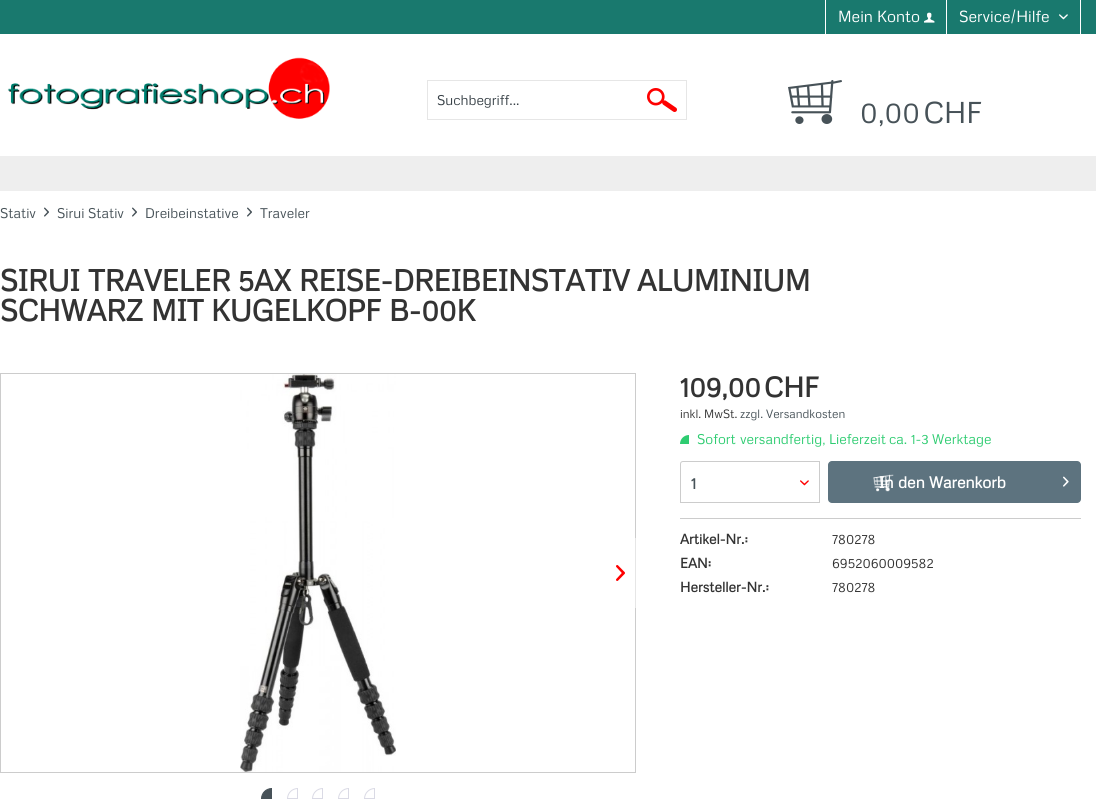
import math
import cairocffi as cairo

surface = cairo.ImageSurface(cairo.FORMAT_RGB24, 1096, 811)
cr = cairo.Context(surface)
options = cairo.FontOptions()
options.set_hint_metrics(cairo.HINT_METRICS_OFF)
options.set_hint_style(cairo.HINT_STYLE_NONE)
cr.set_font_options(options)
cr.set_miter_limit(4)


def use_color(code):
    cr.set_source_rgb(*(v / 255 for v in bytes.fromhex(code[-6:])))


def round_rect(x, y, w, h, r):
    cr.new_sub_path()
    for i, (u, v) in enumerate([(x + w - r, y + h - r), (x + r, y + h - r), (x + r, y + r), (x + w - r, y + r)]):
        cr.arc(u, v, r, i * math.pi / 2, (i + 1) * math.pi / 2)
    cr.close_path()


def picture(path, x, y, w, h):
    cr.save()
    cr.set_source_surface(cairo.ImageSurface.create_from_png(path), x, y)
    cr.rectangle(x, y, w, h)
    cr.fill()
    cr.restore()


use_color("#ffffff")
cr.paint()
use_color("#19796e")
cr.rectangle(0, 0, 1096, 34)
cr.fill()
use_color("#ffffff")
cr.rectangle(825, 0, 1, 34)
cr.fill()
cr.select_font_face("Metrophobic")
cr.set_font_size(16)
cr.move_to(838, 22)
cr.show_text("Mein")
cr.move_to(877, 22)
cr.show_text("Konto")
picture("img1.png", 924, 12, 11, 11)
cr.rectangle(1080, 0, 1, 34)
cr.fill()
cr.rectangle(946, 0, 1, 34)
cr.fill()
cr.move_to(959, 22)
cr.show_text("Service/Hilfe")
picture("img2.png", 1059, 14, 9, 6)
picture("img3.png", 7, 57, 323, 62)
cr.rectangle(427.5, 80.5, 259, 39)
use_color("#e6e6e6")
cr.set_line_width(1)
cr.stroke()
cr.set_font_size(14)
use_color("#384147")
cr.move_to(437, 105)
cr.show_text("Suchbegriff...")
picture("img4.png", 647, 88, 30, 24)
picture("img5.png", 788, 80, 54, 44)
cr.set_font_size(30)
use_color("#475258")
cr.move_to(860, 123)
cr.show_text("0,00 CHF")
use_color("#eeeeee")
cr.rectangle(0, 156, 1096, 35)
cr.fill()
cr.set_font_size(14)
use_color("#475258")
cr.move_to(0, 218)
cr.show_text("Stativ")
picture("img6.png", 44, 207, 5, 10)
cr.move_to(57, 218)
cr.show_text("Sirui")
cr.move_to(88, 218)
cr.show_text("Stativ")
picture("img6.png", 132, 207, 5, 10)
cr.move_to(145, 218)
cr.show_text("Dreibeinstative")
picture("img6.png", 247, 207, 5, 10)
cr.move_to(260, 218)
cr.show_text("Traveler")
cr.select_font_face("Metrophobic", cairo.FONT_SLANT_NORMAL, cairo.FONT_WEIGHT_BOLD)
cr.set_font_size(30)
use_color("#333333")
cr.move_to(0, 291)
cr.show_text("SIRUI")
cr.move_to(88, 291)
cr.show_text("TRAVELER")
cr.move_to(238, 291)
cr.show_text("5AX")
cr.move_to(299, 291)
cr.show_text("REISE-DREIBEINSTATIV")
cr.move_to(637, 291)
cr.show_text("ALUMINIUM")
cr.move_to(0, 321)
cr.show_text("SCHWARZ")
cr.move_to(151, 321)
cr.show_text("MIT")
cr.move_to(211, 321)
cr.show_text("KUGELKOPF")
cr.move_to(389, 321)
cr.show_text("B-00K")
cr.rectangle(0.5, 373.5, 635, 399)
use_color("#cccccc")
cr.stroke()
picture("img7.png", 240, 374, 156, 398)
cr.new_path()
cr.move_to(609, 538.5)
cr.line_to(635.5, 538.5)
cr.line_to(635.5, 607.5)
cr.line_to(609, 607.5)
cr.curve_to(607.5, 607.5, 606.5, 606.5, 606.5, 605)
cr.line_to(606.5, 541)
cr.curve_to(606.5, 539.5, 607.5, 538.5, 609, 538.5)
cr.close_path()
cr.set_source_rgba(1, 1, 1, 0.5)
cr.stroke()
picture("img8.png", 616, 565, 9, 16)
use_color("#475258")
cr.new_path()
cr.move_to(272, 788.5)
cr.line_to(271.5, 788.5)
cr.line_to(271.5, 798.5)
cr.line_to(261.5, 798.5)
cr.line_to(261.5, 799)
cr.curve_to(261.5, 793, 266, 788.5, 272, 788.5)
cr.close_path()
cr.fill_preserve()
cr.stroke()
cr.new_path()
cr.move_to(298, 788.5)
cr.line_to(297.5, 788.5)
cr.line_to(297.5, 798.5)
cr.line_to(287.5, 798.5)
cr.line_to(287.5, 799)
cr.curve_to(287.5, 793, 292, 788.5, 298, 788.5)
cr.close_path()
use_color("#dadae5")
cr.stroke()
cr.new_path()
cr.move_to(323, 788.5)
cr.line_to(322.5, 788.5)
cr.line_to(322.5, 798.5)
cr.line_to(312.5, 798.5)
cr.line_to(312.5, 799)
cr.curve_to(312.5, 793, 317, 788.5, 323, 788.5)
cr.close_path()
cr.stroke()
cr.new_path()
cr.move_to(349, 788.5)
cr.line_to(348.5, 788.5)
cr.line_to(348.5, 798.5)
cr.line_to(338.5, 798.5)
cr.line_to(338.5, 799)
cr.curve_to(338.5, 793, 343, 788.5, 349, 788.5)
cr.close_path()
cr.stroke()
cr.new_path()
cr.move_to(375, 788.5)
cr.line_to(374.5, 788.5)
cr.line_to(374.5, 798.5)
cr.line_to(364.5, 798.5)
cr.line_to(364.5, 799)
cr.curve_to(364.5, 793, 369, 788.5, 375, 788.5)
cr.close_path()
cr.stroke()
use_color("#cccccc")
cr.rectangle(680, 518, 401, 1)
cr.fill()
cr.set_font_size(28)
use_color("#333333")
cr.move_to(680, 397)
cr.show_text("109,00 CHF")
cr.select_font_face("Metrophobic")
cr.set_font_size(12)
cr.move_to(680, 418)
cr.show_text("inkl.")
cr.move_to(704, 418)
cr.show_text("MwSt.")
use_color("#475258")
cr.move_to(740, 418)
cr.show_text("zzgl.")
cr.move_to(766, 418)
cr.show_text("Versandkosten")
use_color("#2ecc71")
cr.new_path()
cr.move_to(689, 435)
cr.line_to(689, 444)
cr.line_to(680, 444)
cr.curve_to(680, 439, 684, 435, 689, 435)
cr.close_path()
cr.fill()
cr.set_font_size(14)
cr.move_to(697, 444)
cr.show_text("Sofort")
cr.move_to(740, 444)
cr.show_text("versandfertig,")
cr.move_to(829, 444)
cr.show_text("Lieferzeit")
cr.move_to(889, 444)
cr.show_text("ca.")
cr.move_to(911, 444)
cr.show_text("1-3")
cr.move_to(932, 444)
cr.show_text("Werktage")
cr.new_path()
cr.move_to(683, 461.5)
cr.line_to(819.5, 461.5)
cr.line_to(819.5, 502.5)
cr.line_to(680.5, 502.5)
cr.line_to(680.5, 464)
cr.curve_to(680.5, 462.5, 681.5, 461.5, 683, 461.5)
cr.close_path()
use_color("#cccccc")
cr.stroke()
cr.select_font_face("Metrophobic", cairo.FONT_SLANT_NORMAL, cairo.FONT_WEIGHT_BOLD)
cr.set_font_size(16)
use_color("#475258")
cr.move_to(691, 489)
cr.show_text("1")
picture("img9.png", 800, 480, 9, 6)
use_color("#5d737f")
round_rect(828, 461, 253, 42, 4)
cr.fill()
picture("img10.png", 873, 474, 21, 18)
use_color("#ffffff")
cr.move_to(879, 488)
cr.show_text("In")
cr.move_to(898, 488)
cr.show_text("den")
cr.move_to(929, 488)
cr.show_text("Warenkorb")
picture("img11.png", 1063, 476, 6, 11)
cr.set_font_size(14)
use_color("#333333")
cr.move_to(680, 544)
cr.show_text("Artikel-Nr.:")
cr.select_font_face("Metrophobic")
cr.move_to(832, 544)
cr.show_text("780278")
cr.select_font_face("Metrophobic", cairo.FONT_SLANT_NORMAL, cairo.FONT_WEIGHT_BOLD)
cr.move_to(680, 568)
cr.show_text("EAN:")
cr.select_font_face("Metrophobic")
cr.move_to(832, 568)
cr.show_text("6952060009582")
cr.select_font_face("Metrophobic", cairo.FONT_SLANT_NORMAL, cairo.FONT_WEIGHT_BOLD)
cr.move_to(680, 592)
cr.show_text("Hersteller-Nr.:")
cr.select_font_face("Metrophobic")
cr.move_to(832, 592)
cr.show_text("780278")
surface.write_to_png("result.png")
